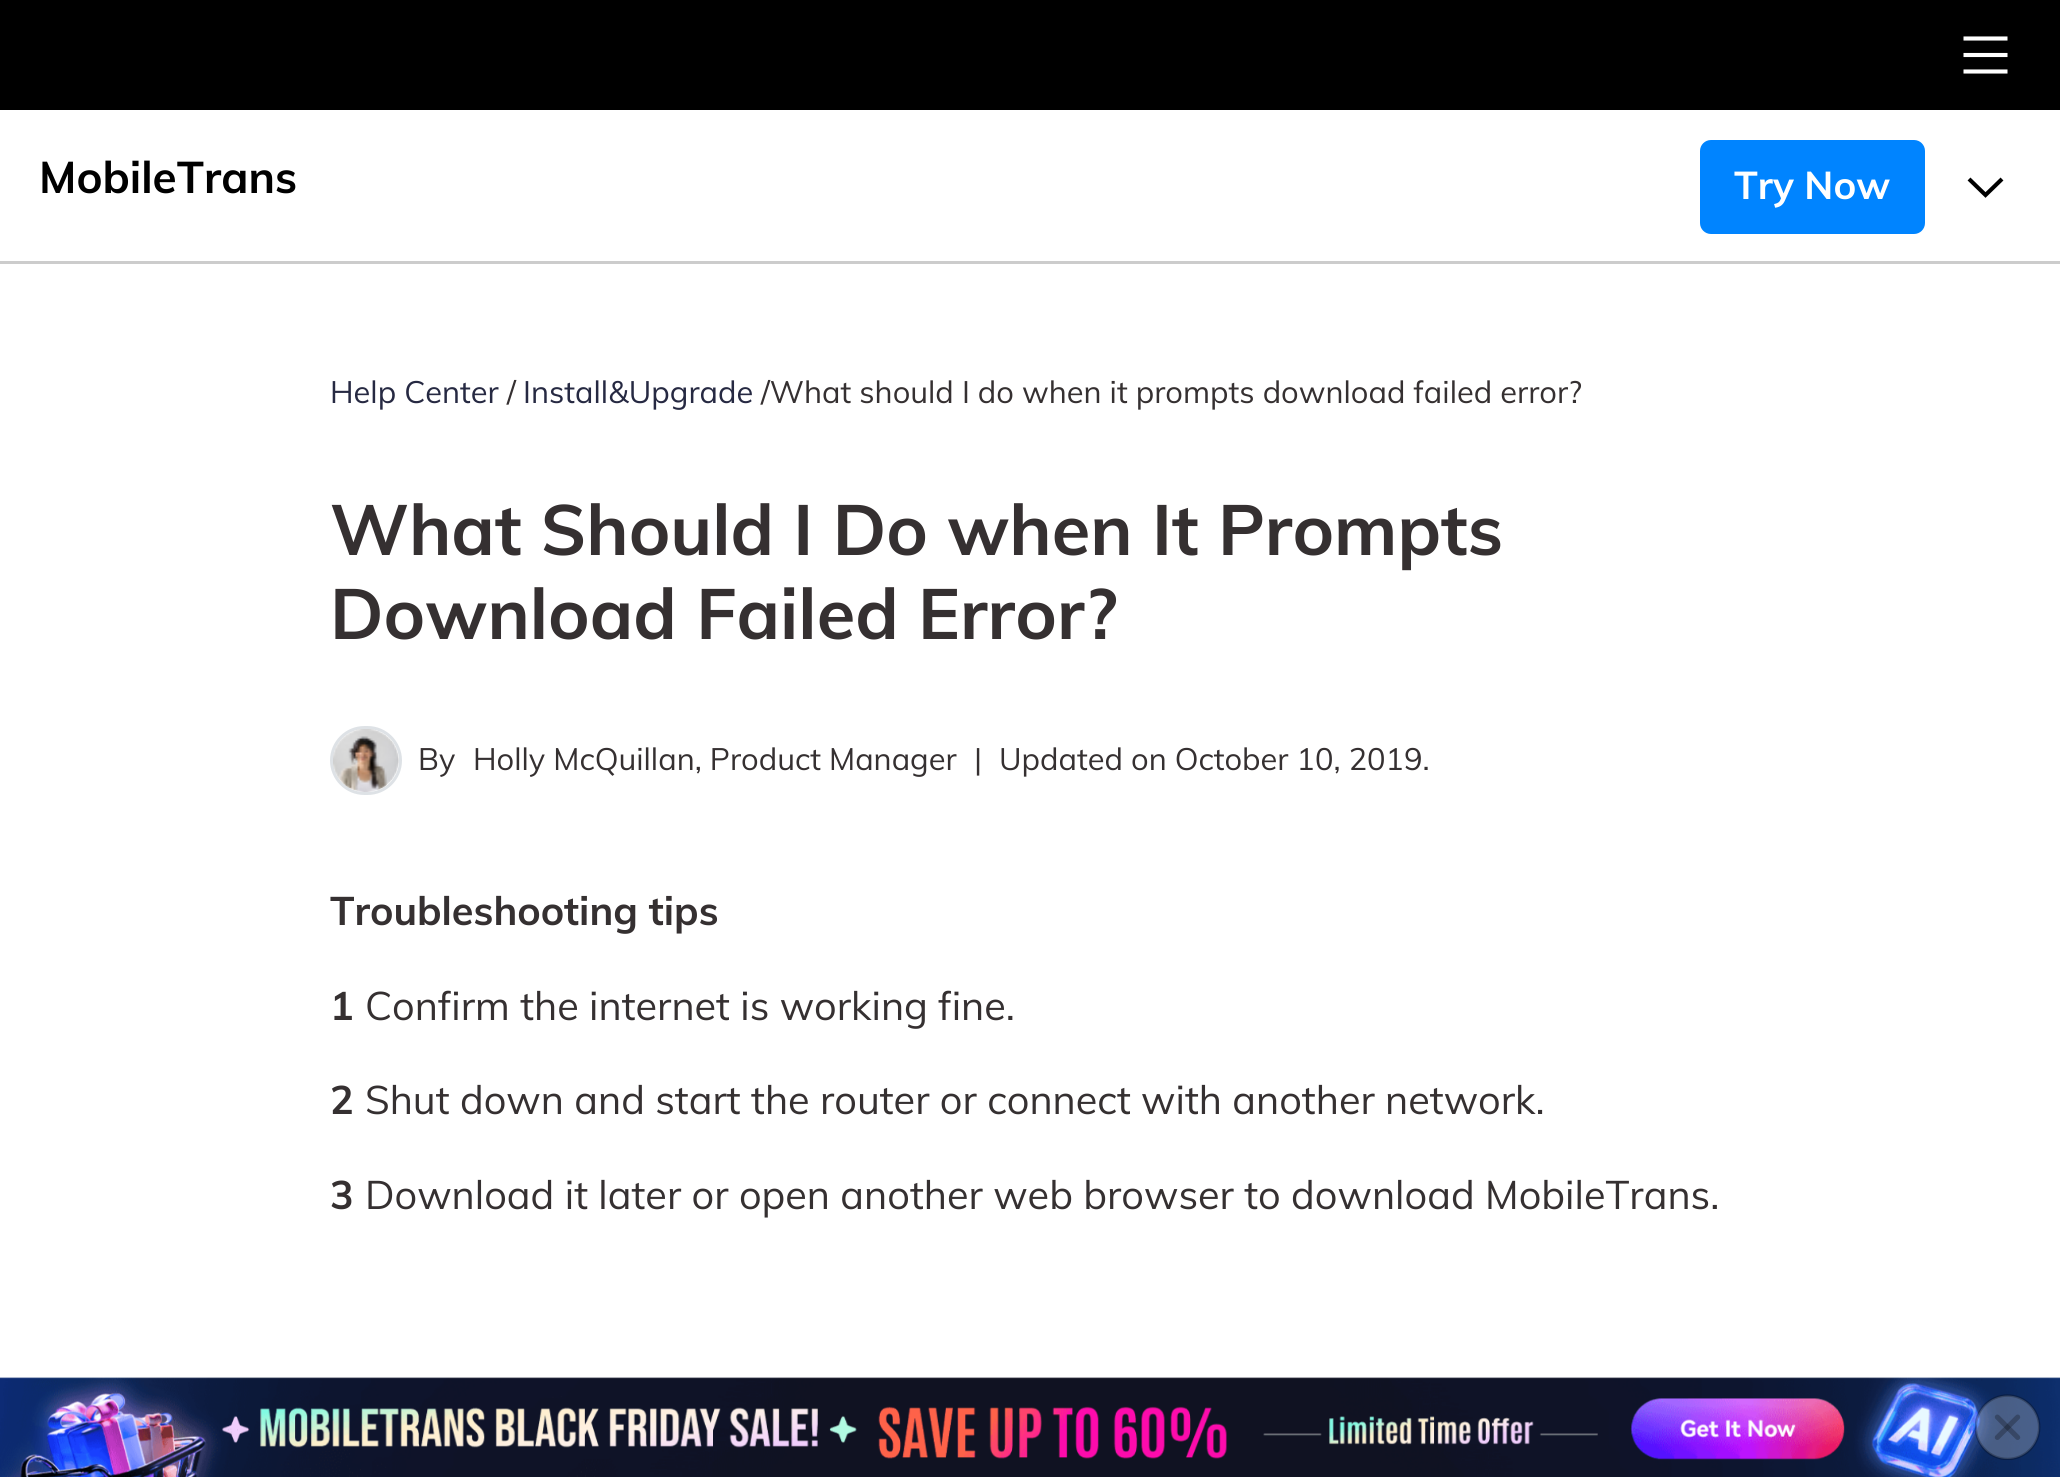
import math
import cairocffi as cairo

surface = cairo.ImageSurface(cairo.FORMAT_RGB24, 2060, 1477)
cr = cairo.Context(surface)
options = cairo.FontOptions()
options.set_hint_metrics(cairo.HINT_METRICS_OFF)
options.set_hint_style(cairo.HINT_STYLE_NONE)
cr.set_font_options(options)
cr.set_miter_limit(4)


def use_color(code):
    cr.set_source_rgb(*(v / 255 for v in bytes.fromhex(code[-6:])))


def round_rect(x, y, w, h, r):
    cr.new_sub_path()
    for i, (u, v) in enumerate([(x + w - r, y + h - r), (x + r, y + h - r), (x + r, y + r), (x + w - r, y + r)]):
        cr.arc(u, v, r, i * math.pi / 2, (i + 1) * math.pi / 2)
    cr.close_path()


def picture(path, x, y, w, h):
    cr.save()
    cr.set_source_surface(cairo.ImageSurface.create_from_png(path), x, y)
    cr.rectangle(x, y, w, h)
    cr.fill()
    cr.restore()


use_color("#ffffff")
cr.paint()
use_color("#000000")
cr.rectangle(0, 0, 2060, 110)
cr.fill()
cr.new_path()
cr.move_to(1963.5, 38.5)
cr.line_to(2007.5, 38.5)
cr.move_to(2007.5, 55)
cr.line_to(1963.5, 55)
cr.move_to(2007.5, 71.5)
cr.line_to(1963.5, 71.5)
use_color("#ffffff")
cr.set_line_width(4.1)
cr.stroke()
use_color("#cccccc")
cr.rectangle(0, 261, 2060, 3)
cr.fill()
cr.select_font_face("Muli", cairo.FONT_SLANT_NORMAL, cairo.FONT_WEIGHT_BOLD)
cr.set_font_size(44)
use_color("#000000")
cr.move_to(39, 193)
cr.show_text("MobileTrans")
use_color("#0084ff")
round_rect(1700, 140, 225, 94, 11)
cr.fill()
cr.set_font_size(38.5)
use_color("#ffffff")
cr.move_to(1734, 199)
cr.show_text("Try Now")
cr.new_path()
cr.move_to(1969, 179)
cr.line_to(1985.5, 195)
cr.line_to(2002, 179)
use_color("#000000")
cr.stroke()
cr.select_font_face("Muli")
cr.set_font_size(30.8)
use_color("#262942")
cr.move_to(330, 403)
cr.show_text("Help Center")
use_color("#353031")
cr.move_to(507, 403)
cr.show_text("/")
use_color("#262942")
cr.move_to(523, 403)
cr.show_text("Install&Upgrade")
use_color("#353031")
cr.move_to(761, 403)
cr.show_text("/What should I do when it prompts download failed error?")
cr.select_font_face("Muli", cairo.FONT_SLANT_NORMAL, cairo.FONT_WEIGHT_BOLD)
cr.set_font_size(70.4)
cr.move_to(330, 555)
cr.show_text("What Should I Do when It Prompts")
cr.move_to(330, 639)
cr.show_text("Download Failed Error?")
round_rect(331.5, 727.5, 69, 66, 33)
use_color("#dee2e6")
cr.set_line_width(3)
cr.stroke()
picture("img1.png", 333, 729, 66, 63)
cr.select_font_face("Muli")
cr.set_font_size(30.8)
use_color("#353031")
cr.move_to(418, 770)
cr.show_text("By")
cr.move_to(473, 770)
cr.show_text("Holly McQuillan, Product Manager")
cr.move_to(974, 770)
cr.show_text("|")
cr.move_to(999, 770)
cr.show_text("Updated on October 10, 2019.")
cr.select_font_face("Muli", cairo.FONT_SLANT_NORMAL, cairo.FONT_WEIGHT_BOLD)
cr.set_font_size(39.6)
cr.move_to(330, 925)
cr.show_text("Troubleshooting tips")
cr.move_to(330, 1020)
cr.show_text("1")
cr.select_font_face("Muli")
cr.move_to(365, 1020)
cr.show_text("Confirm the internet is working fine.")
cr.select_font_face("Muli", cairo.FONT_SLANT_NORMAL, cairo.FONT_WEIGHT_BOLD)
cr.move_to(330, 1114)
cr.show_text("2")
cr.select_font_face("Muli")
cr.move_to(365, 1114)
cr.show_text("Shut down and start the router or connect with another network.")
cr.select_font_face("Muli", cairo.FONT_SLANT_NORMAL, cairo.FONT_WEIGHT_BOLD)
cr.move_to(330, 1209)
cr.show_text("3")
cr.select_font_face("Muli")
cr.move_to(365, 1209)
cr.show_text("Download it later or open another web browser to download MobileTrans.")
picture("img2.png", 0, 1377, 2060, 100)
picture("img3.png", 1975, 1394, 66, 66)
surface.write_to_png("result.png")
